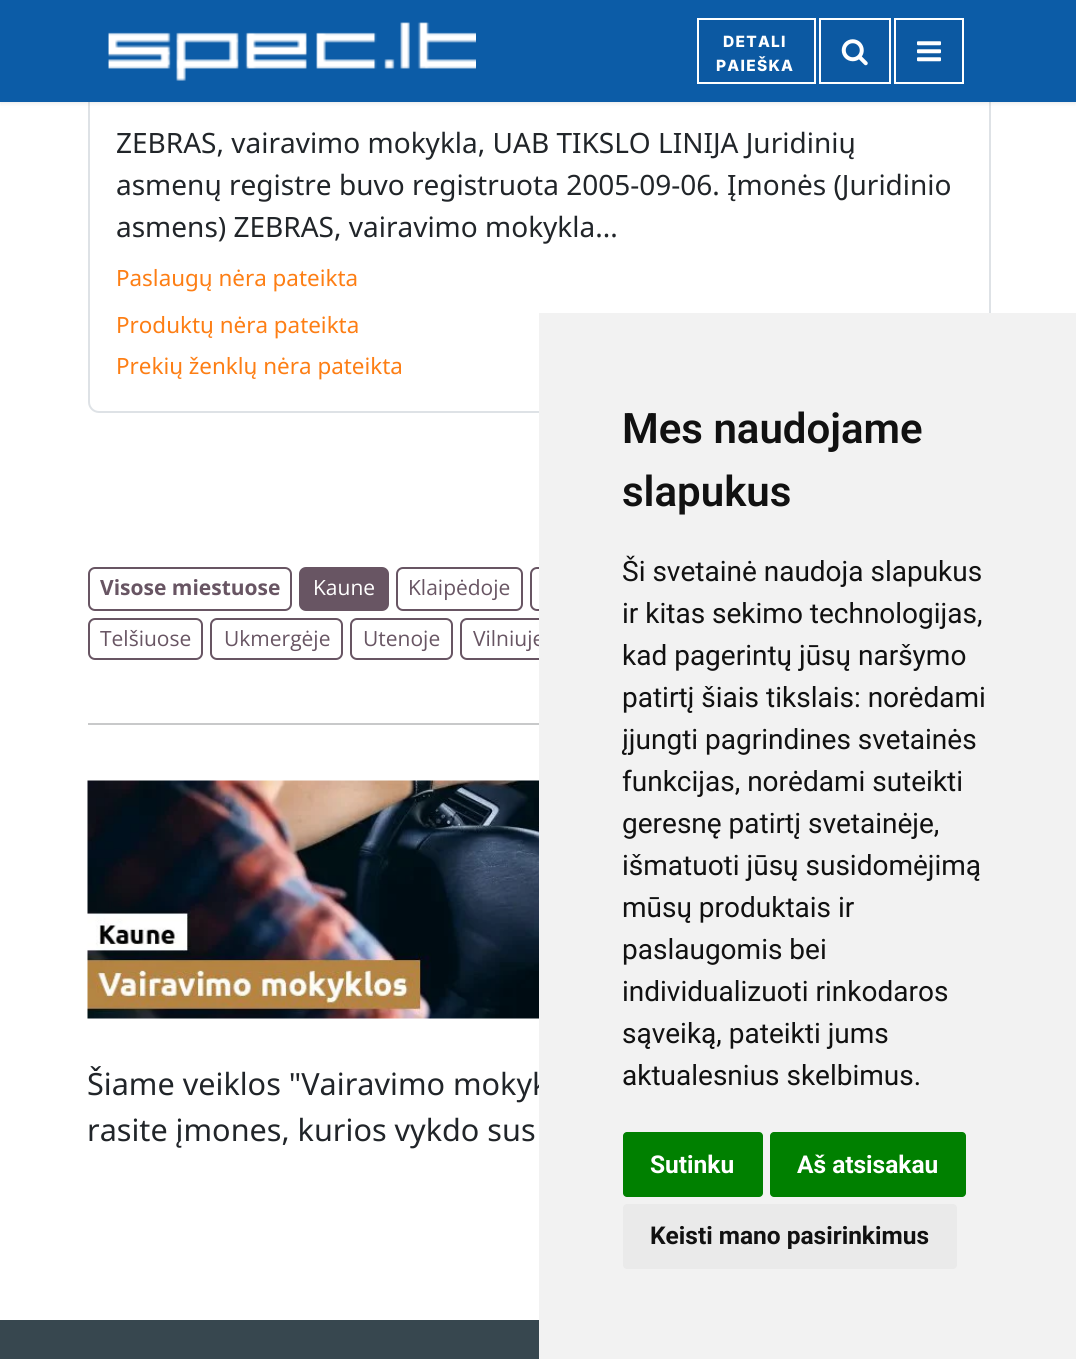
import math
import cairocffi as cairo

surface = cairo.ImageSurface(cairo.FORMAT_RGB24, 1076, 1359)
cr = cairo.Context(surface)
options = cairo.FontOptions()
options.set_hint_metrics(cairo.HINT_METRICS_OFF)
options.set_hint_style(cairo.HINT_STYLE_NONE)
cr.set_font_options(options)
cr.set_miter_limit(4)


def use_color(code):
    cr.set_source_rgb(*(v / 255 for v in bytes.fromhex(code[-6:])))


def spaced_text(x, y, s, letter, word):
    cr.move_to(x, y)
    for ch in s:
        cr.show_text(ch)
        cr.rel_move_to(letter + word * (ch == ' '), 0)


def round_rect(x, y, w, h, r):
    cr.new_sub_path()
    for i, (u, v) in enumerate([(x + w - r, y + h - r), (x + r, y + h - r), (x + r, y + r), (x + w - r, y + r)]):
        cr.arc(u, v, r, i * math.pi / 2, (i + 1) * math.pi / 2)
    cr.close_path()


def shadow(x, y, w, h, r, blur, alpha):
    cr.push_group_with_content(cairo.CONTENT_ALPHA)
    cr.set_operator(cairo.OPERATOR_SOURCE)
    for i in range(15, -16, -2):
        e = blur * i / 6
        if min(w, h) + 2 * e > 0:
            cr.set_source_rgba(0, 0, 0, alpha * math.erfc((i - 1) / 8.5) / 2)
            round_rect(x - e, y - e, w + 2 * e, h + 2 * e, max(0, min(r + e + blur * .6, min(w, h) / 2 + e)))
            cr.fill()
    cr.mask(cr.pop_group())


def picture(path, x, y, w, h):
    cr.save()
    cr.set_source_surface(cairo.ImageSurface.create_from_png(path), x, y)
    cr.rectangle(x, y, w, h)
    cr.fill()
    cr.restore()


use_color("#ffffff")
cr.paint()
round_rect(89, -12, 901, 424, 10)
use_color("#dee2e6")
cr.stroke()
use_color("#000000")
shadow(0, 2, 1076, 101, 0, 2.5, 0.1)
use_color("#0c5ca7")
cr.rectangle(0, 0, 1076, 102)
cr.fill()
picture("img1.png", 108, 22, 368, 59)
use_color("#0c59a2")
cr.rectangle(698, 19, 117, 64)
cr.fill_preserve()
use_color("#ffffff")
cr.stroke()
cr.select_font_face("Inter ExtraBold")
cr.set_font_size(15.5)
spaced_text(723, 47, "DETALI", 1.25, 0)
spaced_text(716, 71, "PAIEŠKA", 1.25, 0)
use_color("#0c59a2")
cr.rectangle(820, 19, 70, 64)
cr.fill_preserve()
use_color("#ffffff")
cr.stroke()
picture("img2.png", 841, 39, 27, 27)
use_color("#0c59a2")
cr.rectangle(895, 19, 68, 64)
cr.fill_preserve()
use_color("#ffffff")
cr.stroke()
picture("img3.png", 917, 41, 24, 21)
cr.select_font_face("Noto Sans")
cr.set_font_size(28)
use_color("#212529")
cr.move_to(116, 153)
cr.show_text("ZEBRAS, vairavimo mokykla, UAB TIKSLO LINIJA Juridinių")
cr.move_to(116, 195)
cr.show_text("asmenų registre buvo registruota 2005-09-06. Įmonės (Juridinio")
cr.move_to(116, 237)
cr.show_text("asmens) ZEBRAS, vairavimo mokykla...")
cr.set_font_size(22.4)
use_color("#fd7e14")
cr.move_to(116, 286)
cr.show_text("Paslaugų nėra pateikta")
cr.move_to(116, 333)
cr.show_text("Produktų nėra pateikta")
cr.move_to(116, 374)
cr.show_text("Prekių ženklų nėra pateikta")
round_rect(89, 568, 202, 42, 6)
use_color("#685563")
cr.stroke()
cr.select_font_face("Open Sans", cairo.FONT_SLANT_NORMAL, cairo.FONT_WEIGHT_BOLD)
cr.set_font_size(21)
cr.move_to(100, 595)
cr.show_text("Visose miestuose")
round_rect(300, 568, 88, 42, 6)
cr.fill_preserve()
cr.stroke()
cr.select_font_face("Open Sans")
use_color("#ffffff")
cr.move_to(313, 595)
cr.show_text("Kaune")
round_rect(397, 568, 125, 42, 6)
use_color("#685563")
cr.stroke()
cr.move_to(408, 595)
cr.show_text("Klaipėdoje")
round_rect(531, 568, 124, 42, 6)
cr.stroke()
round_rect(89, 619, 113, 40, 6)
cr.stroke()
cr.move_to(100, 646)
cr.show_text("Telšiuose")
round_rect(211, 619, 131, 40, 6)
cr.stroke()
cr.move_to(224, 646)
cr.show_text("Ukmergėje")
round_rect(351, 619, 101, 40, 6)
cr.stroke()
cr.move_to(363, 646)
cr.show_text("Utenoje")
round_rect(461, 619, 95, 40, 6)
cr.stroke()
cr.move_to(473, 646)
cr.show_text("Vilniuje")
use_color("#c8c9ca")
cr.rectangle(88, 723, 451, 2)
cr.fill()
picture("img4.png", 87, 780, 452, 239)
cr.select_font_face("Noto Sans")
cr.set_font_size(30.6)
use_color("#212529")
cr.move_to(87, 1095)
cr.show_text("Šiame veiklos \"Vairavimo mokyk")
cr.move_to(87, 1141)
cr.show_text("rasite įmones, kurios vykdo sus")
use_color("#37474f")
cr.rectangle(0, 1320, 539, 39)
cr.fill()
use_color("#f2f2f2")
cr.rectangle(539, 313, 537, 1046)
cr.fill()
cr.select_font_face("Roboto SemiBold")
cr.set_font_size(42)
use_color("#111111")
cr.move_to(622, 443)
cr.show_text("Mes naudojame")
cr.move_to(622, 506)
cr.show_text("slapukus")
cr.select_font_face("Roboto")
cr.set_font_size(28)
cr.move_to(622, 581)
cr.show_text("Ši svetainė naudoja slapukus")
cr.move_to(622, 623)
cr.show_text("ir kitas sekimo technologijas,")
cr.move_to(622, 665)
cr.show_text("kad pagerintų jūsų naršymo")
cr.move_to(622, 707)
cr.show_text("patirtį šiais tikslais: norėdami")
cr.move_to(622, 749)
cr.show_text("įjungti pagrindines svetainės")
cr.move_to(622, 791)
cr.show_text("funkcijas, norėdami suteikti")
cr.move_to(622, 833)
cr.show_text("geresnę patirtį svetainėje,")
cr.move_to(622, 875)
cr.show_text("išmatuoti jūsų susidomėjimą")
cr.move_to(622, 917)
cr.show_text("mūsų produktais ir")
cr.move_to(622, 959)
cr.show_text("paslaugomis bei")
cr.move_to(622, 1001)
cr.show_text("individualizuoti rinkodaros")
cr.move_to(622, 1043)
cr.show_text("sąveiką, pateikti jums")
cr.move_to(622, 1085)
cr.show_text("aktualesnius skelbimus.")
use_color("#008000")
round_rect(623, 1132, 140, 65, 4)
cr.fill()
cr.select_font_face("Roboto", cairo.FONT_SLANT_NORMAL, cairo.FONT_WEIGHT_BOLD)
cr.set_font_size(24.5)
use_color("#ffffff")
cr.move_to(650, 1173)
cr.show_text("Sutinku")
use_color("#008000")
round_rect(770, 1132, 196, 65, 4)
cr.fill()
use_color("#ffffff")
cr.move_to(797, 1173)
cr.show_text("Aš atsisakau")
use_color("#eaeaea")
round_rect(623, 1204, 334, 65, 4)
cr.fill()
use_color("#111111")
cr.move_to(650, 1244)
cr.show_text("Keisti mano pasirinkimus")
surface.write_to_png("result.png")
